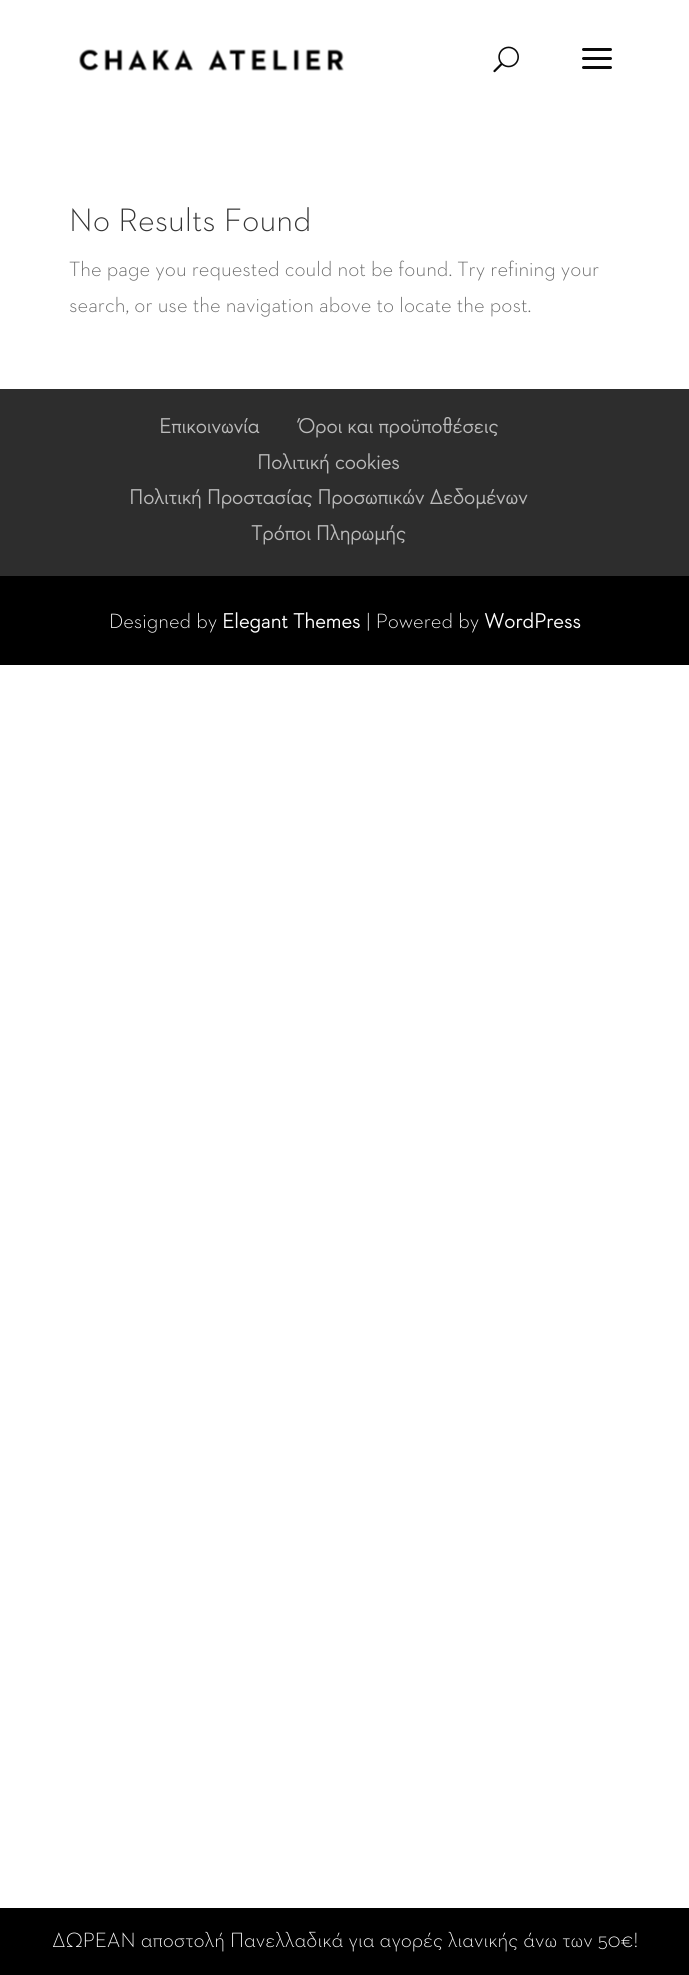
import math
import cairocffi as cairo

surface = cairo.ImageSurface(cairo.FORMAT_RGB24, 689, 1975)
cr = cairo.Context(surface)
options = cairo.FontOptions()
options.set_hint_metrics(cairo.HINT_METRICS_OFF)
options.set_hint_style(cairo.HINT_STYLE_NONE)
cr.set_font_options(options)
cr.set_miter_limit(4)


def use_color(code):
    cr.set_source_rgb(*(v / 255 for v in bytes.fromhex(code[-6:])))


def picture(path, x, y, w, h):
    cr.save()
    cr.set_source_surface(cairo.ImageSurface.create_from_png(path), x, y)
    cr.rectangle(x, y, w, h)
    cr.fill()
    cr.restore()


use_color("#ffffff")
cr.paint()
picture("img1.png", 79, 49, 265, 22)
picture("img2.png", 493, 46, 26, 27)
picture("img3.png", 582, 48, 30, 21)
cr.select_font_face("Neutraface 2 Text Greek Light")
cr.set_font_size(33)
use_color("#333333")
cr.move_to(69, 231)
cr.show_text("No Results Found")
cr.set_font_size(21)
use_color("#666666")
cr.move_to(69, 276)
cr.show_text("The page you requested could not be found. Try refining your")
cr.move_to(69, 312)
cr.show_text("search, or use the navigation above to locate the post.")
use_color("#2d2d2d")
cr.rectangle(0, 389, 689, 187)
cr.fill()
cr.select_font_face("Neutraface 2 Text Greek", cairo.FONT_SLANT_NORMAL, cairo.FONT_WEIGHT_BOLD)
use_color("#bbbbbb")
cr.move_to(159, 433)
cr.show_text("Επικοινωνία")
cr.move_to(298, 433)
cr.show_text("Όροι και προϋποθέσεις")
cr.move_to(257, 469)
cr.show_text("Πολιτική cookies")
cr.move_to(129, 504)
cr.show_text("Πολιτική Προστασίας Προσωπικών Δεδομένων")
cr.move_to(251, 540)
cr.show_text("Τρόποι Πληρωμής")
use_color("#000000")
cr.rectangle(0, 576, 689, 89)
cr.fill()
cr.select_font_face("Neutraface 2 Text Greek Light")
use_color("#ffffff")
cr.move_to(109, 628)
cr.show_text("Designed by")
cr.select_font_face("Neutraface 2 Text Greek", cairo.FONT_SLANT_NORMAL, cairo.FONT_WEIGHT_BOLD)
cr.move_to(222, 628)
cr.show_text("Elegant Themes")
cr.select_font_face("Neutraface 2 Text Greek Light")
cr.move_to(366, 628)
cr.show_text("| Powered by")
cr.select_font_face("Neutraface 2 Text Greek", cairo.FONT_SLANT_NORMAL, cairo.FONT_WEIGHT_BOLD)
cr.move_to(484, 628)
cr.show_text("WordPress")
use_color("#000000")
cr.rectangle(0, 1908, 689, 67)
cr.fill()
cr.select_font_face("Neutraface 2 Text Greek Light")
use_color("#ffffff")
cr.move_to(52, 1947)
cr.show_text("ΔΩΡΕΑΝ αποστολή Πανελλαδικά για αγορές λιανικής άνω των 50€!")
surface.write_to_png("result.png")
